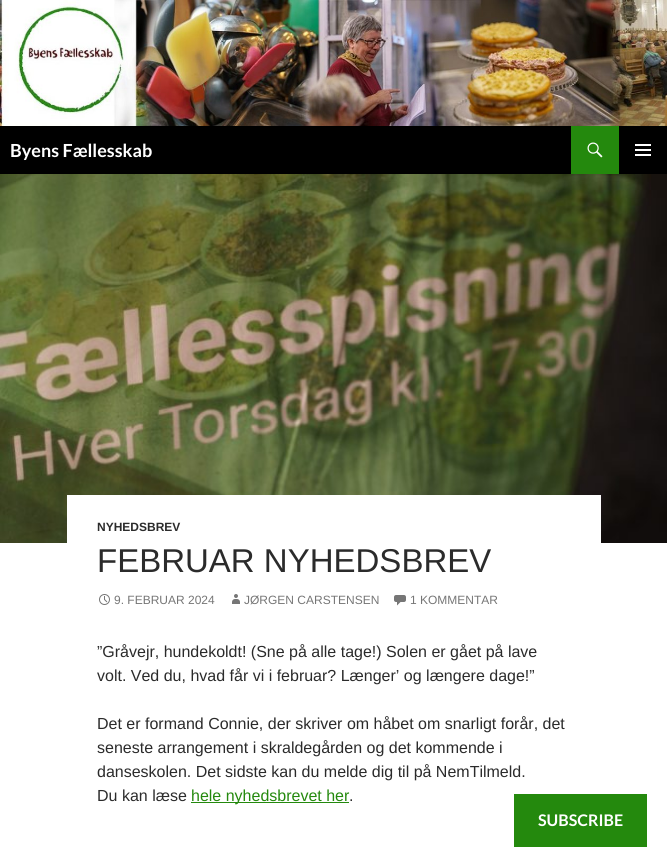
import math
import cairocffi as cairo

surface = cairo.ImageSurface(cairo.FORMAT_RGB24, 667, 867)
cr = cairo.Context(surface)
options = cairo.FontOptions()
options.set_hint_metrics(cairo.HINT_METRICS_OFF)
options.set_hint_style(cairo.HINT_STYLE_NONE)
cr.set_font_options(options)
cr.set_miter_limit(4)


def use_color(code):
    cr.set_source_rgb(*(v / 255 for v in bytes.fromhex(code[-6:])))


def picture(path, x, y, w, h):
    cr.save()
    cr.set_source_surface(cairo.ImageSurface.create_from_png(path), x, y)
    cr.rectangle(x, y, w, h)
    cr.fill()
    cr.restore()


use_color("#ffffff")
cr.paint()
picture("img1.png", 0, 0, 667, 126)
use_color("#000000")
cr.rectangle(0, 126, 667, 48)
cr.fill()
cr.select_font_face("Lato", cairo.FONT_SLANT_NORMAL, cairo.FONT_WEIGHT_BOLD)
cr.set_font_size(18)
use_color("#ffffff")
cr.move_to(10, 157)
cr.show_text("Byens Fællesskab")
use_color("#24890d")
cr.rectangle(571, 126, 48, 48)
cr.fill()
picture("img2.png", 587, 142, 16, 16)
picture("img3.png", 635, 144, 16, 12)
picture("img4.png", 0, 174, 667, 369)
use_color("#ffffff")
cr.rectangle(67, 495, 534, 48)
cr.fill()
cr.select_font_face("Liberation Sans", cairo.FONT_SLANT_NORMAL, cairo.FONT_WEIGHT_BOLD)
cr.set_font_size(12)
use_color("#2b2b2b")
cr.move_to(97, 531)
cr.show_text("NYHEDSBREV")
cr.select_font_face("Liberation Sans")
cr.set_font_size(33)
cr.move_to(97, 572)
cr.show_text("FEBRUAR NYHEDSBREV")
picture("img5.png", 99, 594, 11, 11)
cr.set_font_size(12)
use_color("#767676")
cr.move_to(114, 604)
cr.show_text("9. FEBRUAR 2024")
picture("img6.png", 232, 594, 8, 10)
cr.move_to(244, 604)
cr.show_text("JØRGEN CARSTENSEN")
picture("img7.png", 394, 595, 12, 11)
cr.move_to(410, 604)
cr.show_text("1 KOMMENTAR")
cr.set_font_size(16)
use_color("#2b2b2b")
cr.move_to(97, 657)
cr.show_text("”Gråvejr, hundekoldt! (Sne på alle tage!) Solen er gået på lave")
cr.move_to(97, 681)
cr.show_text("volt. Ved du, hvad får vi i februar? Længer’ og længere dage!”")
cr.move_to(97, 729)
cr.show_text("Det er formand Connie, der skriver om håbet om snarligt forår, det")
cr.move_to(97, 753)
cr.show_text("seneste arrangement i skraldegården og det kommende i")
cr.move_to(97, 777)
cr.show_text("danseskolen. Det sidste kan du melde dig til på NemTilmeld.")
cr.move_to(97, 801)
cr.show_text("Du kan læse")
use_color("#24890d")
cr.rectangle(191, 802, 158, 1)
cr.fill()
cr.move_to(191, 801)
cr.show_text("hele nyhedsbrevet her")
use_color("#2b2b2b")
cr.move_to(349, 801)
cr.show_text(".")
use_color("#24890d")
cr.rectangle(514, 794, 133, 53)
cr.fill()
cr.select_font_face("Lato", cairo.FONT_SLANT_NORMAL, cairo.FONT_WEIGHT_BOLD)
use_color("#ffffff")
cr.move_to(538, 826)
cr.show_text("SUBSCRIBE")
surface.write_to_png("result.png")
